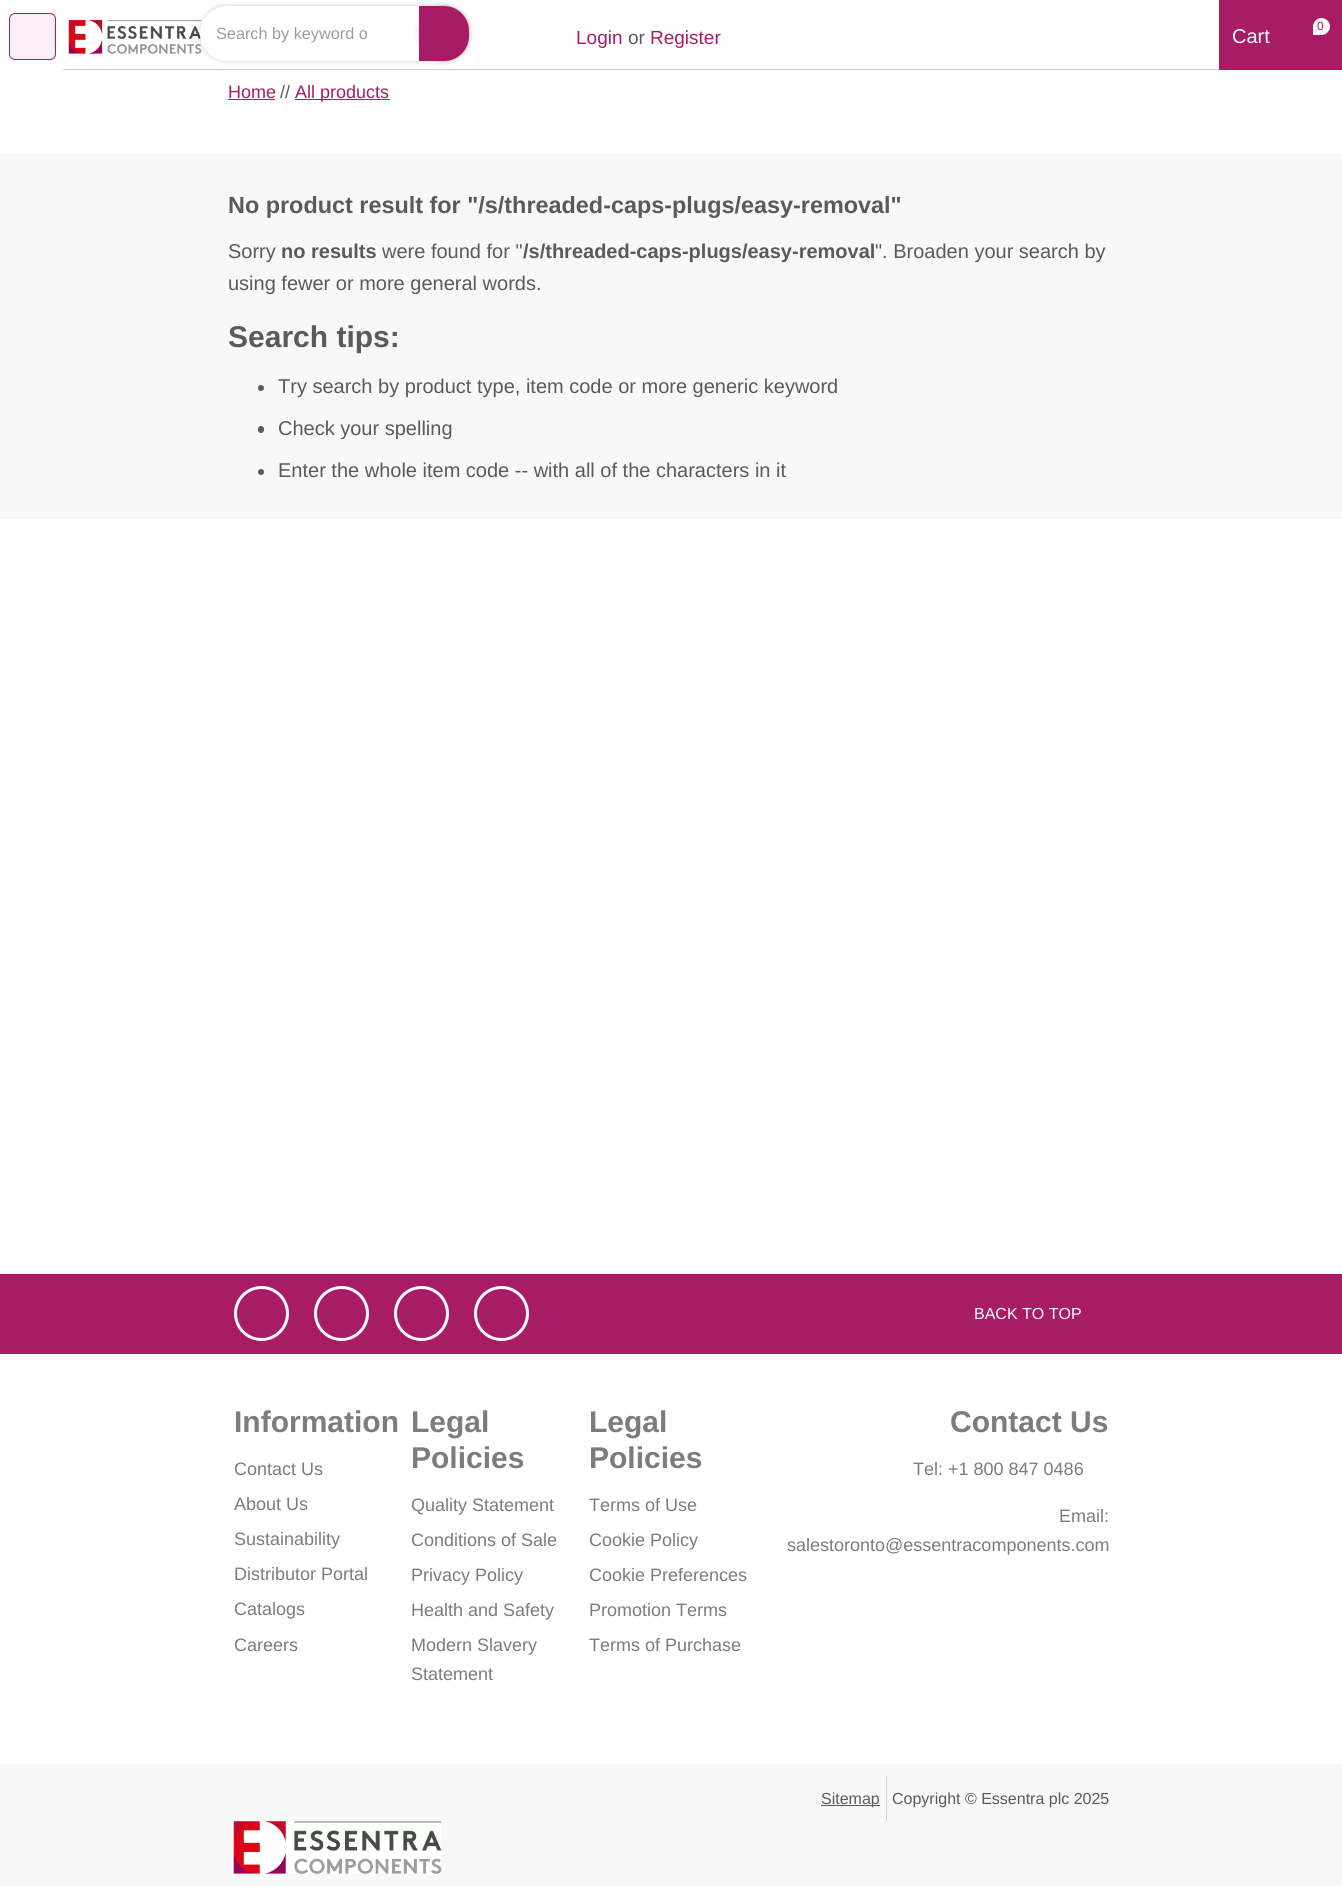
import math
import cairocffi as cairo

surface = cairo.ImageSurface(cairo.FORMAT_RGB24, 1342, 1886)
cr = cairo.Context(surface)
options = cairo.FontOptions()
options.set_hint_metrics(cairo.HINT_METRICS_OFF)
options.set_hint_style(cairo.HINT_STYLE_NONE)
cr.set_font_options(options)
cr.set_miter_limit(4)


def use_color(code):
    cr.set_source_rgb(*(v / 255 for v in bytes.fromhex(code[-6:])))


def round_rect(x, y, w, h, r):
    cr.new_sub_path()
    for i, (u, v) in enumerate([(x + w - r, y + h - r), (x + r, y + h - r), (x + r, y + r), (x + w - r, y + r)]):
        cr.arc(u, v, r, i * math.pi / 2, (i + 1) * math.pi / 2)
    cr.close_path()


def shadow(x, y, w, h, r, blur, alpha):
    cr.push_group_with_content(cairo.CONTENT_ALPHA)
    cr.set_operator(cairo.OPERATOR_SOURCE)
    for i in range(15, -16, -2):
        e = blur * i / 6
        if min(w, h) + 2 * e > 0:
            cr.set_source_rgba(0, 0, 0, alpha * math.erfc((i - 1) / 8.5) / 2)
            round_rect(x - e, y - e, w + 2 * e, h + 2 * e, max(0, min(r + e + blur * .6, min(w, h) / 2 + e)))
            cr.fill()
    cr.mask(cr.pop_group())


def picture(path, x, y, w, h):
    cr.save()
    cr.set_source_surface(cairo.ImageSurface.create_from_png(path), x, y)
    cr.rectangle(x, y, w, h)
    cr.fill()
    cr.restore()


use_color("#ffffff")
cr.paint()
use_color("#fceef6")
round_rect(9.5, 13.5, 46, 46, 5.5)
cr.fill_preserve()
use_color("#a81b65")
cr.set_line_width(1)
cr.stroke()
picture("img1.png", 68, 20, 134, 34)
use_color("#cccccc")
cr.rectangle(63, 69, 1156, 1)
cr.fill()
use_color("#000001")
shadow(200, 6, 269, 55, 27.5, 2.5, 0.2)
use_color("#ffffff")
round_rect(200.5, 6.5, 268, 54, 27)
cr.fill_preserve()
cr.stroke()
cr.select_font_face("Liberation Sans")
cr.set_font_size(16.25)
use_color("#9d9da1")
cr.move_to(216, 39)
cr.show_text("Search by keyword o")
use_color("#000001")
shadow(419, 6, 50, 55, 25, 2.5, 0.2)
use_color("#a81b65")
cr.new_path()
cr.move_to(420.5, 7.5)
cr.line_to(444, 7.5)
cr.curve_to(457, 7.5, 467.5, 18, 467.5, 31)
cr.line_to(467.5, 36)
cr.curve_to(467.5, 49, 457, 59.5, 444, 59.5)
cr.line_to(420.5, 59.5)
cr.close_path()
cr.fill_preserve()
cr.set_line_width(3)
cr.stroke()
cr.set_font_size(19)
cr.move_to(576, 44)
cr.show_text("Login")
use_color("#5a5a5a")
cr.move_to(628, 44)
cr.show_text("or")
use_color("#a81b65")
cr.move_to(650, 44)
cr.show_text("Register")
cr.rectangle(1219, 0, 123, 70)
cr.fill()
use_color("#ffffff")
cr.new_path()
cr.move_to(1321.5, 18)
cr.curve_to(1326, 18, 1330, 22, 1330, 26.5)
cr.curve_to(1330, 31, 1326, 35, 1321.5, 35)
cr.line_to(1313, 35)
cr.line_to(1313, 26.5)
cr.curve_to(1313, 22, 1317, 18, 1321.5, 18)
cr.close_path()
cr.fill()
cr.set_font_size(12)
use_color("#a81b65")
cr.move_to(1317, 30)
cr.show_text("0")
cr.set_font_size(20)
use_color("#ffffff")
cr.move_to(1232, 43)
cr.show_text("Cart")
cr.set_font_size(18)
use_color("#a81b65")
cr.move_to(228, 98)
cr.show_text("Home")
cr.rectangle(228, 99, 47, 1)
cr.fill()
use_color("#5a5a5a")
cr.move_to(280, 98)
cr.show_text("//")
use_color("#a81b65")
cr.rectangle(295, 99, 95, 1)
cr.fill()
cr.move_to(295, 98)
cr.show_text("All products")
use_color("#f8f8f8")
cr.rectangle(0, 154, 1342, 365)
cr.fill()
cr.select_font_face("Liberation Sans", cairo.FONT_SLANT_NORMAL, cairo.FONT_WEIGHT_BOLD)
cr.set_font_size(23.4)
use_color("#5a5a5a")
cr.move_to(228, 213)
cr.show_text("No product result for \"/s/threaded-caps-plugs/easy-removal\"")
cr.select_font_face("Liberation Sans")
cr.set_font_size(20)
cr.move_to(228, 258)
cr.show_text("Sorry")
cr.select_font_face("Liberation Sans", cairo.FONT_SLANT_NORMAL, cairo.FONT_WEIGHT_BOLD)
cr.move_to(281, 258)
cr.show_text("no results")
cr.select_font_face("Liberation Sans")
cr.move_to(382, 258)
cr.show_text("were found for \"")
cr.select_font_face("Liberation Sans", cairo.FONT_SLANT_NORMAL, cairo.FONT_WEIGHT_BOLD)
cr.move_to(523, 258)
cr.show_text("/s/threaded-caps-plugs/easy-removal")
cr.select_font_face("Liberation Sans")
cr.move_to(875, 258)
cr.show_text("\". Broaden your search by")
cr.move_to(228, 290)
cr.show_text("using fewer or more general words.")
cr.select_font_face("Liberation Sans", cairo.FONT_SLANT_NORMAL, cairo.FONT_WEIGHT_BOLD)
cr.set_font_size(30)
cr.move_to(228, 347)
cr.show_text("Search tips:")
cr.new_path()
cr.arc(261, 388, 3, 0, 2 * math.pi)
cr.fill()
cr.select_font_face("Liberation Sans")
cr.set_font_size(20)
cr.move_to(278, 393)
cr.show_text("Try search by product type, item code or more generic keyword")
round_rect(258, 426, 6, 7, 3)
cr.fill()
cr.move_to(278, 435)
cr.show_text("Check your spelling")
cr.new_path()
cr.arc(261, 472, 3, 0, 2 * math.pi)
cr.fill()
cr.move_to(278, 477)
cr.show_text("Enter the whole item code -- with all of the characters in it")
use_color("#a81b65")
cr.rectangle(0, 1274, 1342, 80)
cr.fill()
cr.arc(261.5, 1313.5, 26, 0, 2 * math.pi)
use_color("#ffffff")
cr.stroke()
cr.arc(341.5, 1313.5, 26, 0, 2 * math.pi)
cr.stroke()
cr.arc(421.5, 1313.5, 26, 0, 2 * math.pi)
cr.stroke()
cr.arc(501.5, 1313.5, 26, 0, 2 * math.pi)
cr.stroke()
cr.set_font_size(16)
cr.move_to(974, 1319)
cr.show_text("BACK TO TOP")
cr.select_font_face("Liberation Sans", cairo.FONT_SLANT_NORMAL, cairo.FONT_WEIGHT_BOLD)
cr.set_font_size(30)
use_color("#7b7c7f")
cr.move_to(234, 1432)
cr.show_text("Information")
cr.select_font_face("Liberation Sans")
cr.set_font_size(18)
cr.move_to(234, 1475)
cr.show_text("Contact Us")
cr.move_to(234, 1510)
cr.show_text("About Us")
cr.move_to(234, 1545)
cr.show_text("Sustainability")
cr.move_to(234, 1580)
cr.show_text("Distributor Portal")
cr.move_to(234, 1615)
cr.show_text("Catalogs")
cr.move_to(234, 1651)
cr.show_text("Careers")
cr.select_font_face("Liberation Sans", cairo.FONT_SLANT_NORMAL, cairo.FONT_WEIGHT_BOLD)
cr.set_font_size(30)
cr.move_to(411, 1432)
cr.show_text("Legal")
cr.move_to(411, 1468)
cr.show_text("Policies")
cr.select_font_face("Liberation Sans")
cr.set_font_size(18)
cr.move_to(411, 1511)
cr.show_text("Quality Statement")
cr.move_to(411, 1546)
cr.show_text("Conditions of Sale")
cr.move_to(411, 1581)
cr.show_text("Privacy Policy")
cr.move_to(411, 1616)
cr.show_text("Health and Safety")
cr.move_to(411, 1651)
cr.show_text("Modern Slavery")
cr.move_to(411, 1680)
cr.show_text("Statement")
cr.select_font_face("Liberation Sans", cairo.FONT_SLANT_NORMAL, cairo.FONT_WEIGHT_BOLD)
cr.set_font_size(30)
cr.move_to(589, 1432)
cr.show_text("Legal")
cr.move_to(589, 1468)
cr.show_text("Policies")
cr.select_font_face("Liberation Sans")
cr.set_font_size(18)
cr.move_to(589, 1511)
cr.show_text("Terms of Use")
cr.move_to(589, 1546)
cr.show_text("Cookie Policy")
cr.move_to(589, 1581)
cr.show_text("Cookie Preferences")
cr.move_to(589, 1616)
cr.show_text("Promotion Terms")
cr.move_to(589, 1651)
cr.show_text("Terms of Purchase")
cr.select_font_face("Liberation Sans", cairo.FONT_SLANT_NORMAL, cairo.FONT_WEIGHT_BOLD)
cr.set_font_size(30)
cr.move_to(950, 1432)
cr.show_text("Contact Us")
cr.select_font_face("Liberation Sans")
cr.set_font_size(18)
cr.move_to(913, 1475)
cr.show_text("Tel: +1 800 847 0486")
cr.move_to(1059, 1522)
cr.show_text("Email:")
cr.move_to(787, 1551)
cr.show_text("salestoronto@essentracomponents.com")
use_color("#f8f8f8")
cr.rectangle(0, 1764, 1342, 122)
cr.fill()
use_color("#cccccc")
cr.rectangle(886, 1776, 1, 45)
cr.fill()
use_color("#5a5a5a")
cr.rectangle(821, 1805, 59, 1)
cr.fill()
cr.set_font_size(16)
cr.move_to(821, 1804)
cr.show_text("Sitemap")
cr.move_to(892, 1804)
cr.show_text("Copyright © Essentra plc 2025")
picture("img2.png", 233, 1821, 209, 53)
surface.write_to_png("result.png")
